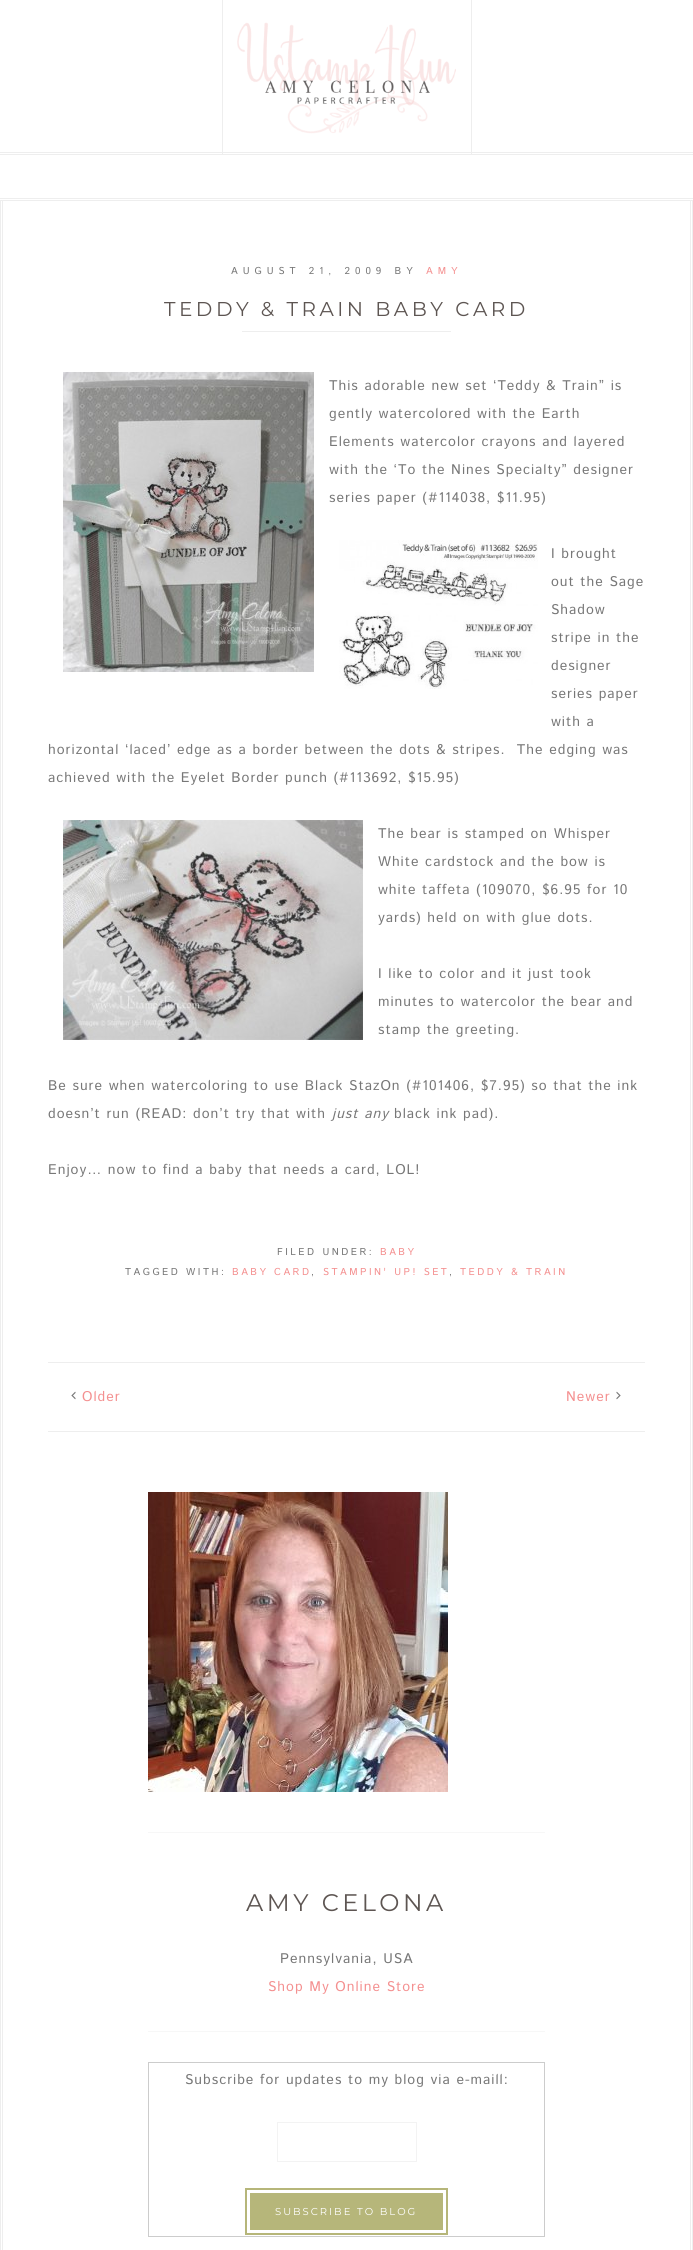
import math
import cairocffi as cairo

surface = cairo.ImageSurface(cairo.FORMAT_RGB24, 693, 2250)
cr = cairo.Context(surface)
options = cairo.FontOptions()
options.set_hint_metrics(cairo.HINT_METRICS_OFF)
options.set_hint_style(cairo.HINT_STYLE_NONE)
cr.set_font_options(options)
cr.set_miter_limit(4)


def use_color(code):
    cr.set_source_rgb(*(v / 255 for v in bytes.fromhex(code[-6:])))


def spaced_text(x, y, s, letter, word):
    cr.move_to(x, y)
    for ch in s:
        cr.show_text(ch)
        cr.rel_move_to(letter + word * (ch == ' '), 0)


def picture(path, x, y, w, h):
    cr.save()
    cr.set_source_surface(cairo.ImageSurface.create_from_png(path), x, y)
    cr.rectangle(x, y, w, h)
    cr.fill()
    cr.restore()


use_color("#ffffff")
cr.paint()
use_color("#eeeeee")
cr.rectangle(0, 152, 693, 1)
cr.fill()
cr.rectangle(0, 154, 693, 1)
cr.fill()
cr.rectangle(471, 0, 1, 155)
cr.fill()
cr.rectangle(222, 0, 1, 155)
cr.fill()
picture("img1.png", 237, 22, 219, 112)
cr.rectangle(0, 198, 693, 1)
cr.fill()
cr.rectangle(0, 200, 693, 1)
cr.fill()
cr.rectangle(690, 201, 1, 2049)
cr.fill()
cr.rectangle(692, 201, 1, 2049)
cr.fill()
cr.rectangle(0, 201, 1, 2049)
cr.fill()
cr.rectangle(2, 201, 1, 2049)
cr.fill()
cr.select_font_face("Istok Web")
cr.set_font_size(10)
use_color("#777777")
spaced_text(231, 274, "AUGUST 21, 2009 BY", 5, 0)
use_color("#f49090")
spaced_text(426, 274, "AMY", 5, 0)
cr.select_font_face("Montserrat Thin")
cr.set_font_size(20)
use_color("#5d5552")
spaced_text(164, 316, "TEDDY & TRAIN BABY CARD", 3.5, 0)
use_color("#eeeeee")
cr.rectangle(242, 331, 209, 1)
cr.fill()
picture("img2.png", 63, 372, 251, 300)
cr.select_font_face("Istok Web")
cr.set_font_size(14)
use_color("#777777")
spaced_text(329, 390, "This adorable new set ‘Teddy & Train” is", 1, 0)
spaced_text(329, 418, "gently watercolored with the Earth", 1, 0)
spaced_text(329, 446, "Elements watercolor crayons and layered", 1, 0)
spaced_text(329, 474, "with the ‘To the Nines Specialty” designer", 1, 0)
spaced_text(329, 502, "series paper (#114038, $11.95)", 1, 0)
picture("img3.png", 339, 540, 199, 149)
spaced_text(551, 558, "I brought", 1, 0)
spaced_text(551, 586, "out the Sage", 1, 0)
spaced_text(551, 614, "Shadow", 1, 0)
spaced_text(551, 642, "stripe in the", 1, 0)
spaced_text(551, 670, "designer", 1, 0)
spaced_text(551, 698, "series paper", 1, 0)
spaced_text(551, 726, "with a", 1, 0)
spaced_text(48, 754, "horizontal ‘laced’ edge as a border between the dots & stripes.  The edging was", 1, 0)
spaced_text(48, 782, "achieved with the Eyelet Border punch (#113692, $15.95)", 1, 0)
picture("img4.png", 63, 820, 300, 220)
spaced_text(378, 838, "The bear is stamped on Whisper", 1, 0)
spaced_text(378, 866, "White cardstock and the bow is", 1, 0)
spaced_text(378, 894, "white taffeta (109070, $6.95 for 10", 1, 0)
spaced_text(378, 922, "yards) held on with glue dots.", 1, 0)
spaced_text(378, 978, "I like to color and it just took", 1, 0)
spaced_text(378, 1006, "minutes to watercolor the bear and", 1, 0)
spaced_text(378, 1034, "stamp the greeting.", 1, 0)
spaced_text(48, 1090, "Be sure when watercoloring to use Black StazOn (#101406, $7.95) so that the ink", 1, 0)
spaced_text(48, 1118, "doesn’t run (READ: don’t try that with", 1, 0)
cr.select_font_face("Istok Web", cairo.FONT_SLANT_ITALIC)
spaced_text(332, 1118, "just any", 1, 0)
cr.select_font_face("Istok Web")
spaced_text(394, 1118, "black ink pad).", 1, 0)
spaced_text(48, 1174, "Enjoy… now to find a baby that needs a card, LOL!", 1, 0)
cr.set_font_size(10)
spaced_text(277, 1255, "FILED UNDER:", 2.5, 0)
use_color("#f49090")
spaced_text(380, 1255, "BABY", 2.5, 0)
use_color("#777777")
spaced_text(125, 1275, "TAGGED WITH:", 2.5, 0)
use_color("#f49090")
spaced_text(232, 1275, "BABY CARD", 2.5, 0)
use_color("#777777")
spaced_text(311, 1275, ",", 2.5, 0)
use_color("#f49090")
spaced_text(323, 1275, "STAMPIN' UP! SET", 2.5, 0)
use_color("#777777")
spaced_text(449, 1275, ",", 2.5, 0)
use_color("#f49090")
spaced_text(460, 1275, "TEDDY & TRAIN", 2.5, 0)
use_color("#eeeeee")
cr.rectangle(48, 1362, 597, 1)
cr.fill()
cr.rectangle(48, 1431, 597, 1)
cr.fill()
picture("img5.png", 71, 1391, 5, 9)
cr.set_font_size(14)
use_color("#f49090")
spaced_text(82, 1401, "Older", 1, 0)
spaced_text(566, 1401, "Newer", 1, 0)
picture("img6.png", 616, 1391, 5, 9)
use_color("#f7f7f7")
cr.rectangle(148, 1832, 397, 1)
cr.fill()
picture("img7.png", 148, 1492, 300, 300)
cr.rectangle(148, 2031, 397, 1)
cr.fill()
cr.select_font_face("Montserrat Thin")
cr.set_font_size(24)
use_color("#5d5552")
spaced_text(246, 1911, "AMY CELONA", 3.5, 0)
cr.select_font_face("Istok Web")
cr.set_font_size(14)
use_color("#777777")
spaced_text(280, 1963, "Pennsylvania, USA", 1, 0)
use_color("#f49090")
spaced_text(268, 1991, "Shop My Online Store", 1, 0)
cr.rectangle(148.5, 2062.5, 396, 174)
use_color("#cccccc")
cr.set_line_width(1)
cr.stroke()
use_color("#777777")
spaced_text(185, 2084, "Subscribe for updates to my blog via e-maill:", 1, 0)
cr.rectangle(277.5, 2122.5, 139, 39)
use_color("#f3f3f3")
cr.stroke()
use_color("#b6b67a")
cr.rectangle(250, 2193, 193, 37)
cr.fill()
cr.rectangle(246, 2189, 201, 45)
cr.set_line_width(2)
cr.stroke()
cr.select_font_face("Montserrat Thin")
cr.set_font_size(10)
use_color("#ffffff")
spaced_text(275, 2215, "SUBSCRIBE TO BLOG", 2, 0)
surface.write_to_png("result.png")
